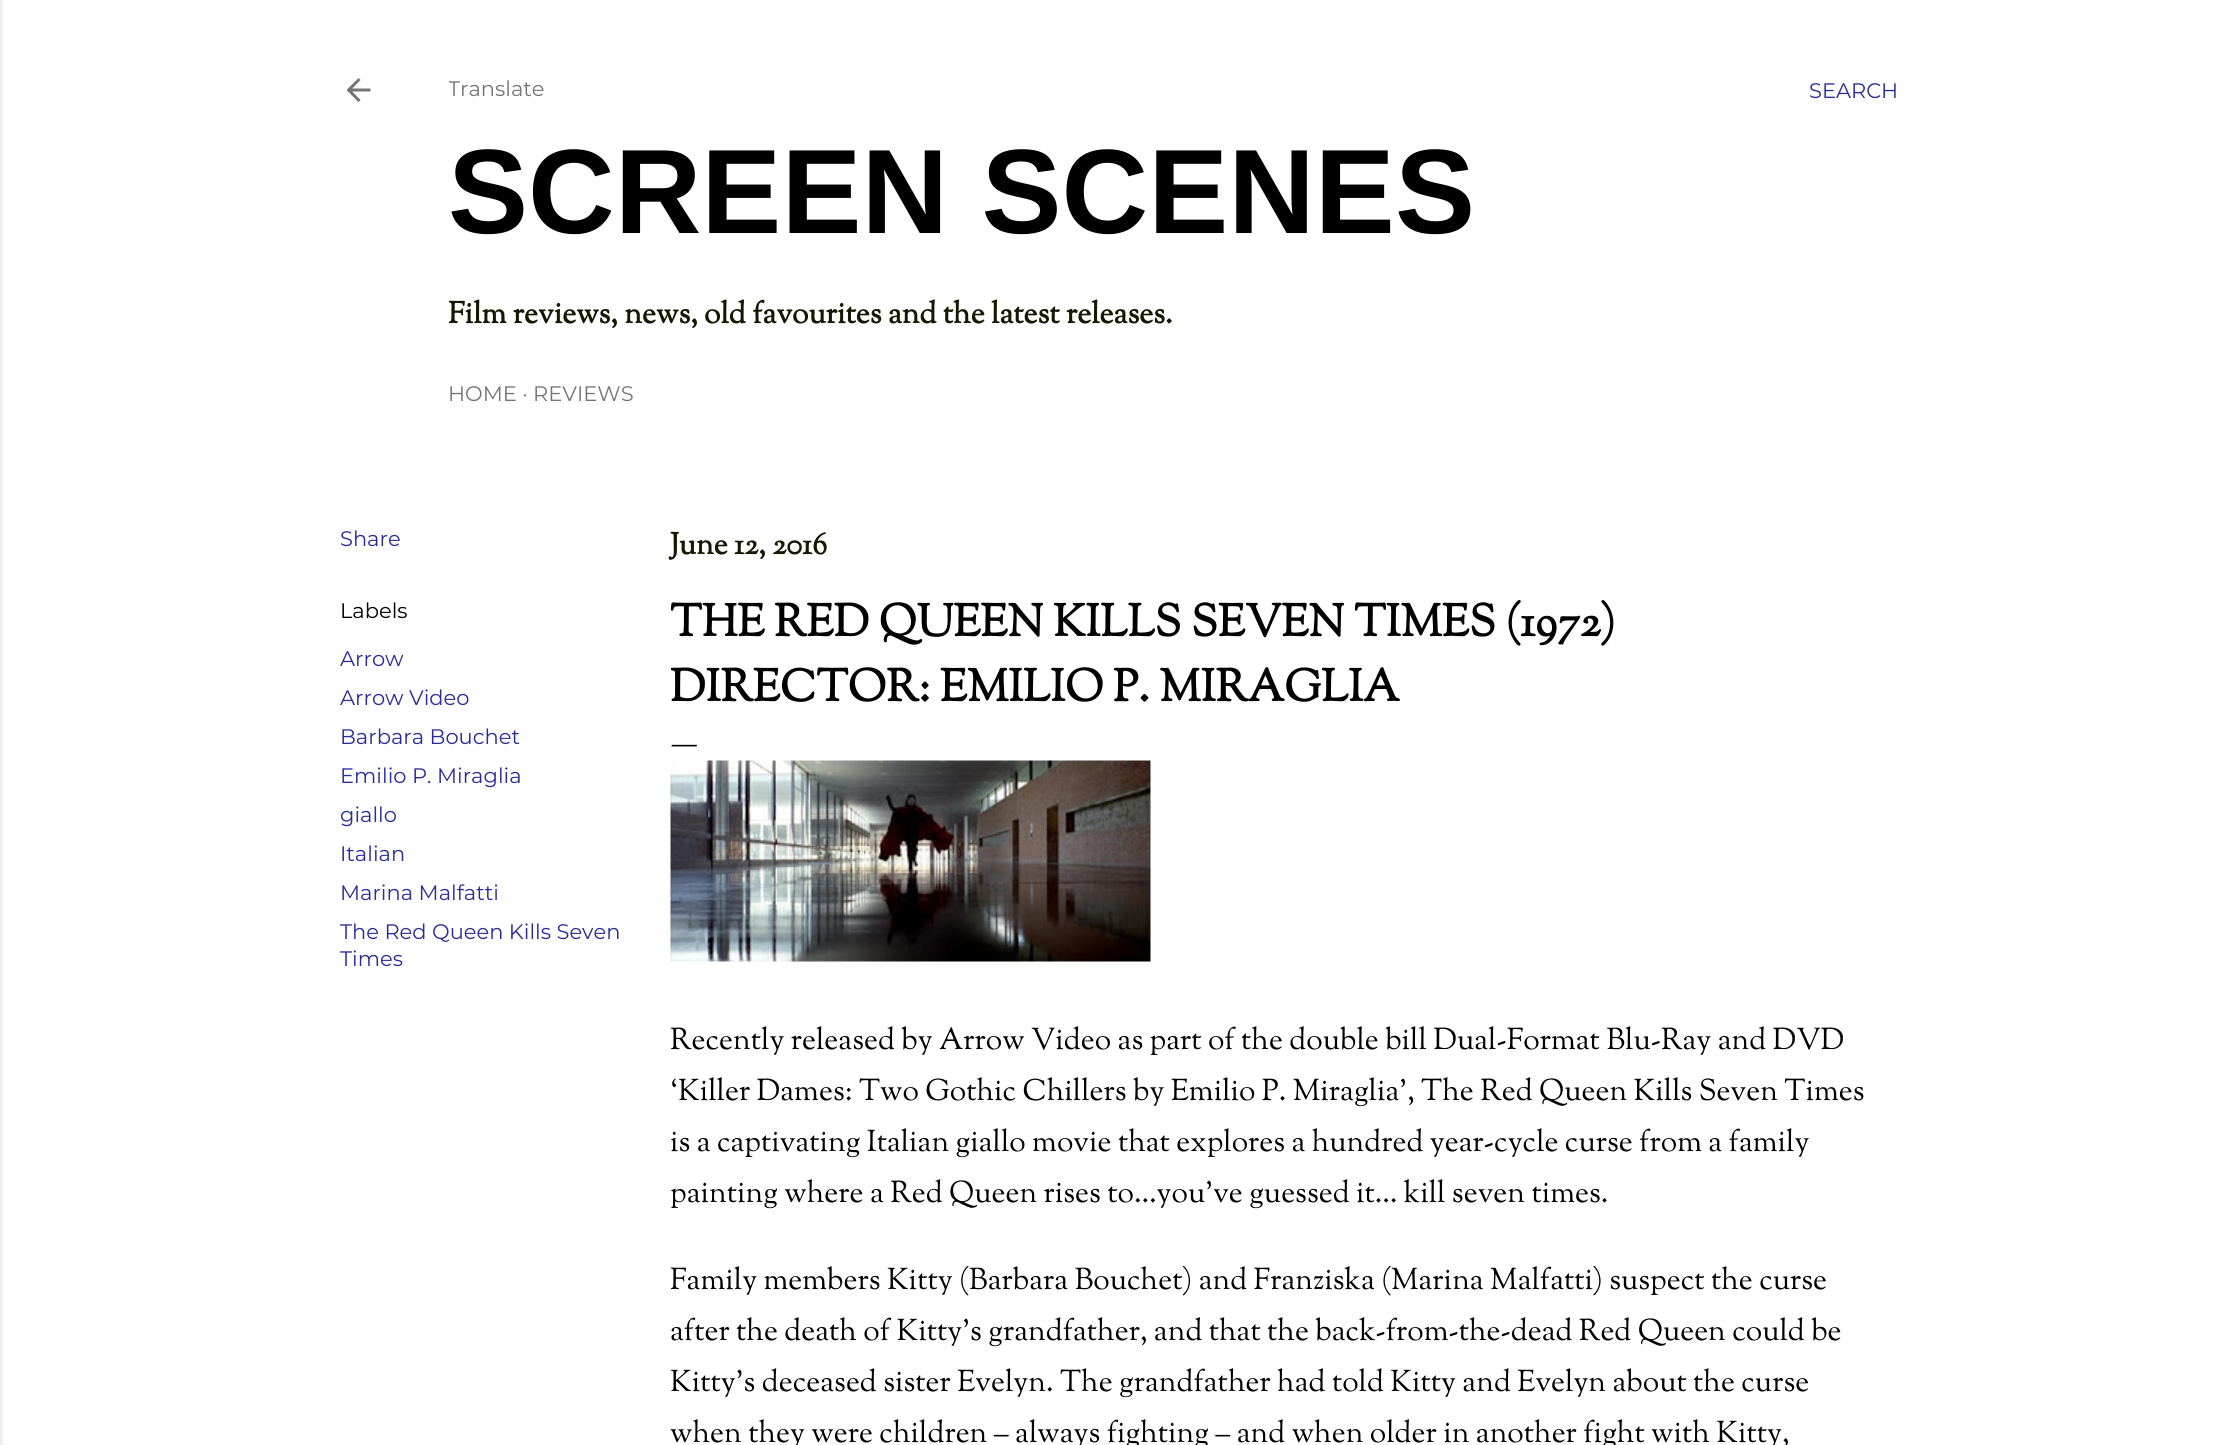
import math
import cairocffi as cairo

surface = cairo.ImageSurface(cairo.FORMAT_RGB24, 2237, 1445)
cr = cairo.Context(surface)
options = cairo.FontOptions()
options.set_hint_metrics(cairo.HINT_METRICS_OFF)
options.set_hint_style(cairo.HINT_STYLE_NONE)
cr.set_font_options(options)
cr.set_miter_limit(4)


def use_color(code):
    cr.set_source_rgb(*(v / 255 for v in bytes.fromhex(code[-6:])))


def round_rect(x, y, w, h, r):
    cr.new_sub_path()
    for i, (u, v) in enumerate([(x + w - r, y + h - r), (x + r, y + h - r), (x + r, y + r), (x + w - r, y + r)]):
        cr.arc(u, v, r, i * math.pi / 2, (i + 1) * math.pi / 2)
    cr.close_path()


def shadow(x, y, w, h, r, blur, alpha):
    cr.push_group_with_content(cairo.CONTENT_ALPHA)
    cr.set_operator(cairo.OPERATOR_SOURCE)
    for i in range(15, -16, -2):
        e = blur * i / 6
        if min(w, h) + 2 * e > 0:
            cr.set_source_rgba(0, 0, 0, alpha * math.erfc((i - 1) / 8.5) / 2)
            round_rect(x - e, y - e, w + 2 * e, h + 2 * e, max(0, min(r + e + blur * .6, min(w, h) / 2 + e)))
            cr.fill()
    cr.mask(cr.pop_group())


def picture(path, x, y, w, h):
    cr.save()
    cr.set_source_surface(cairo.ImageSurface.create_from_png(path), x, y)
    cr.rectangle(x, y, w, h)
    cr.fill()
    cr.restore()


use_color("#ffffff")
cr.paint()
use_color("#000000")
shadow(-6, 0, 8, 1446, 0, 2, 0.1)
picture("img1.png", 346, 78, 25, 24)
cr.save()
cr.rectangle(449, 54, 1288, 360)
cr.clip()
cr.select_font_face("Montserrat")
cr.set_font_size(21)
use_color("#757575")
cr.move_to(448, 96)
cr.show_text("Translate")
cr.restore()
cr.select_font_face("Liberation Sans", cairo.FONT_SLANT_NORMAL, cairo.FONT_WEIGHT_BOLD)
cr.set_font_size(120)
use_color("#000000")
cr.move_to(448, 233)
cr.show_text("SCREEN SCENES")
cr.save()
cr.rectangle(449, 54, 1288, 360)
cr.clip()
cr.select_font_face("Sorts Mill Goudy", cairo.FONT_SLANT_NORMAL, cairo.FONT_WEIGHT_BOLD)
cr.set_font_size(30)
use_color("#171702")
cr.move_to(448, 323)
cr.show_text("Film reviews, news, old favourites and the latest releases.")
cr.restore()
cr.select_font_face("Montserrat")
cr.set_font_size(21)
use_color("#757575")
cr.move_to(448, 401)
cr.show_text("HOME · REVIEWS")
use_color("#2c2c99")
cr.move_to(1809, 98)
cr.show_text("SEARCH")
cr.move_to(340, 546)
cr.show_text("Share")
use_color("#000000")
cr.move_to(340, 618)
cr.show_text("Labels")
use_color("#2c2c99")
cr.move_to(340, 666)
cr.show_text("Arrow")
cr.move_to(340, 705)
cr.show_text("Arrow Video")
cr.move_to(340, 744)
cr.show_text("Barbara Bouchet")
cr.move_to(340, 783)
cr.show_text("Emilio P. Miraglia")
cr.move_to(340, 822)
cr.show_text("giallo")
cr.move_to(340, 861)
cr.show_text("Italian")
cr.move_to(340, 900)
cr.show_text("Marina Malfatti")
cr.move_to(340, 939)
cr.show_text("The Red Queen Kills Seven")
cr.move_to(340, 966)
cr.show_text("Times")
cr.select_font_face("Sorts Mill Goudy", cairo.FONT_SLANT_NORMAL, cairo.FONT_WEIGHT_BOLD)
cr.set_font_size(30)
use_color("#171702")
cr.move_to(670, 554)
cr.show_text("June 12, 2016")
cr.set_font_size(45)
use_color("#000000")
cr.move_to(670, 636)
cr.show_text("THE RED QUEEN KILLS SEVEN TIMES (1972)")
cr.move_to(670, 701)
cr.show_text("DIRECTOR: EMILIO P. MIRAGLIA")
cr.select_font_face("EB Garamond")
cr.set_font_size(30)
cr.move_to(670, 752)
cr.show_text("—")
picture("img2.png", 670, 760, 481, 202)
cr.select_font_face("Sorts Mill Goudy")
cr.move_to(670, 1049)
cr.show_text("Recently released by Arrow Video as part of the double bill Dual-Format Blu-Ray and DVD")
cr.move_to(670, 1100)
cr.show_text("‘Killer Dames: Two Gothic Chillers by Emilio P. Miraglia’, The Red Queen Kills Seven Times")
cr.move_to(670, 1151)
cr.show_text("is a captivating Italian giallo movie that explores a hundred year-cycle curse from a family")
cr.move_to(670, 1202)
cr.show_text("painting where a Red Queen rises to…you’ve guessed it… kill seven times.")
cr.move_to(670, 1289)
cr.show_text("Family members Kitty (Barbara Bouchet) and Franziska (Marina Malfatti) suspect the curse")
cr.move_to(670, 1340)
cr.show_text("after the death of Kitty’s grandfather, and that the back-from-the-dead Red Queen could be")
cr.move_to(670, 1391)
cr.show_text("Kitty’s deceased sister Evelyn. The grandfather had told Kitty and Evelyn about the curse")
cr.move_to(670, 1442)
cr.show_text("when they were children – always fighting – and when older in another fight with Kitty,")
surface.write_to_png("result.png")
